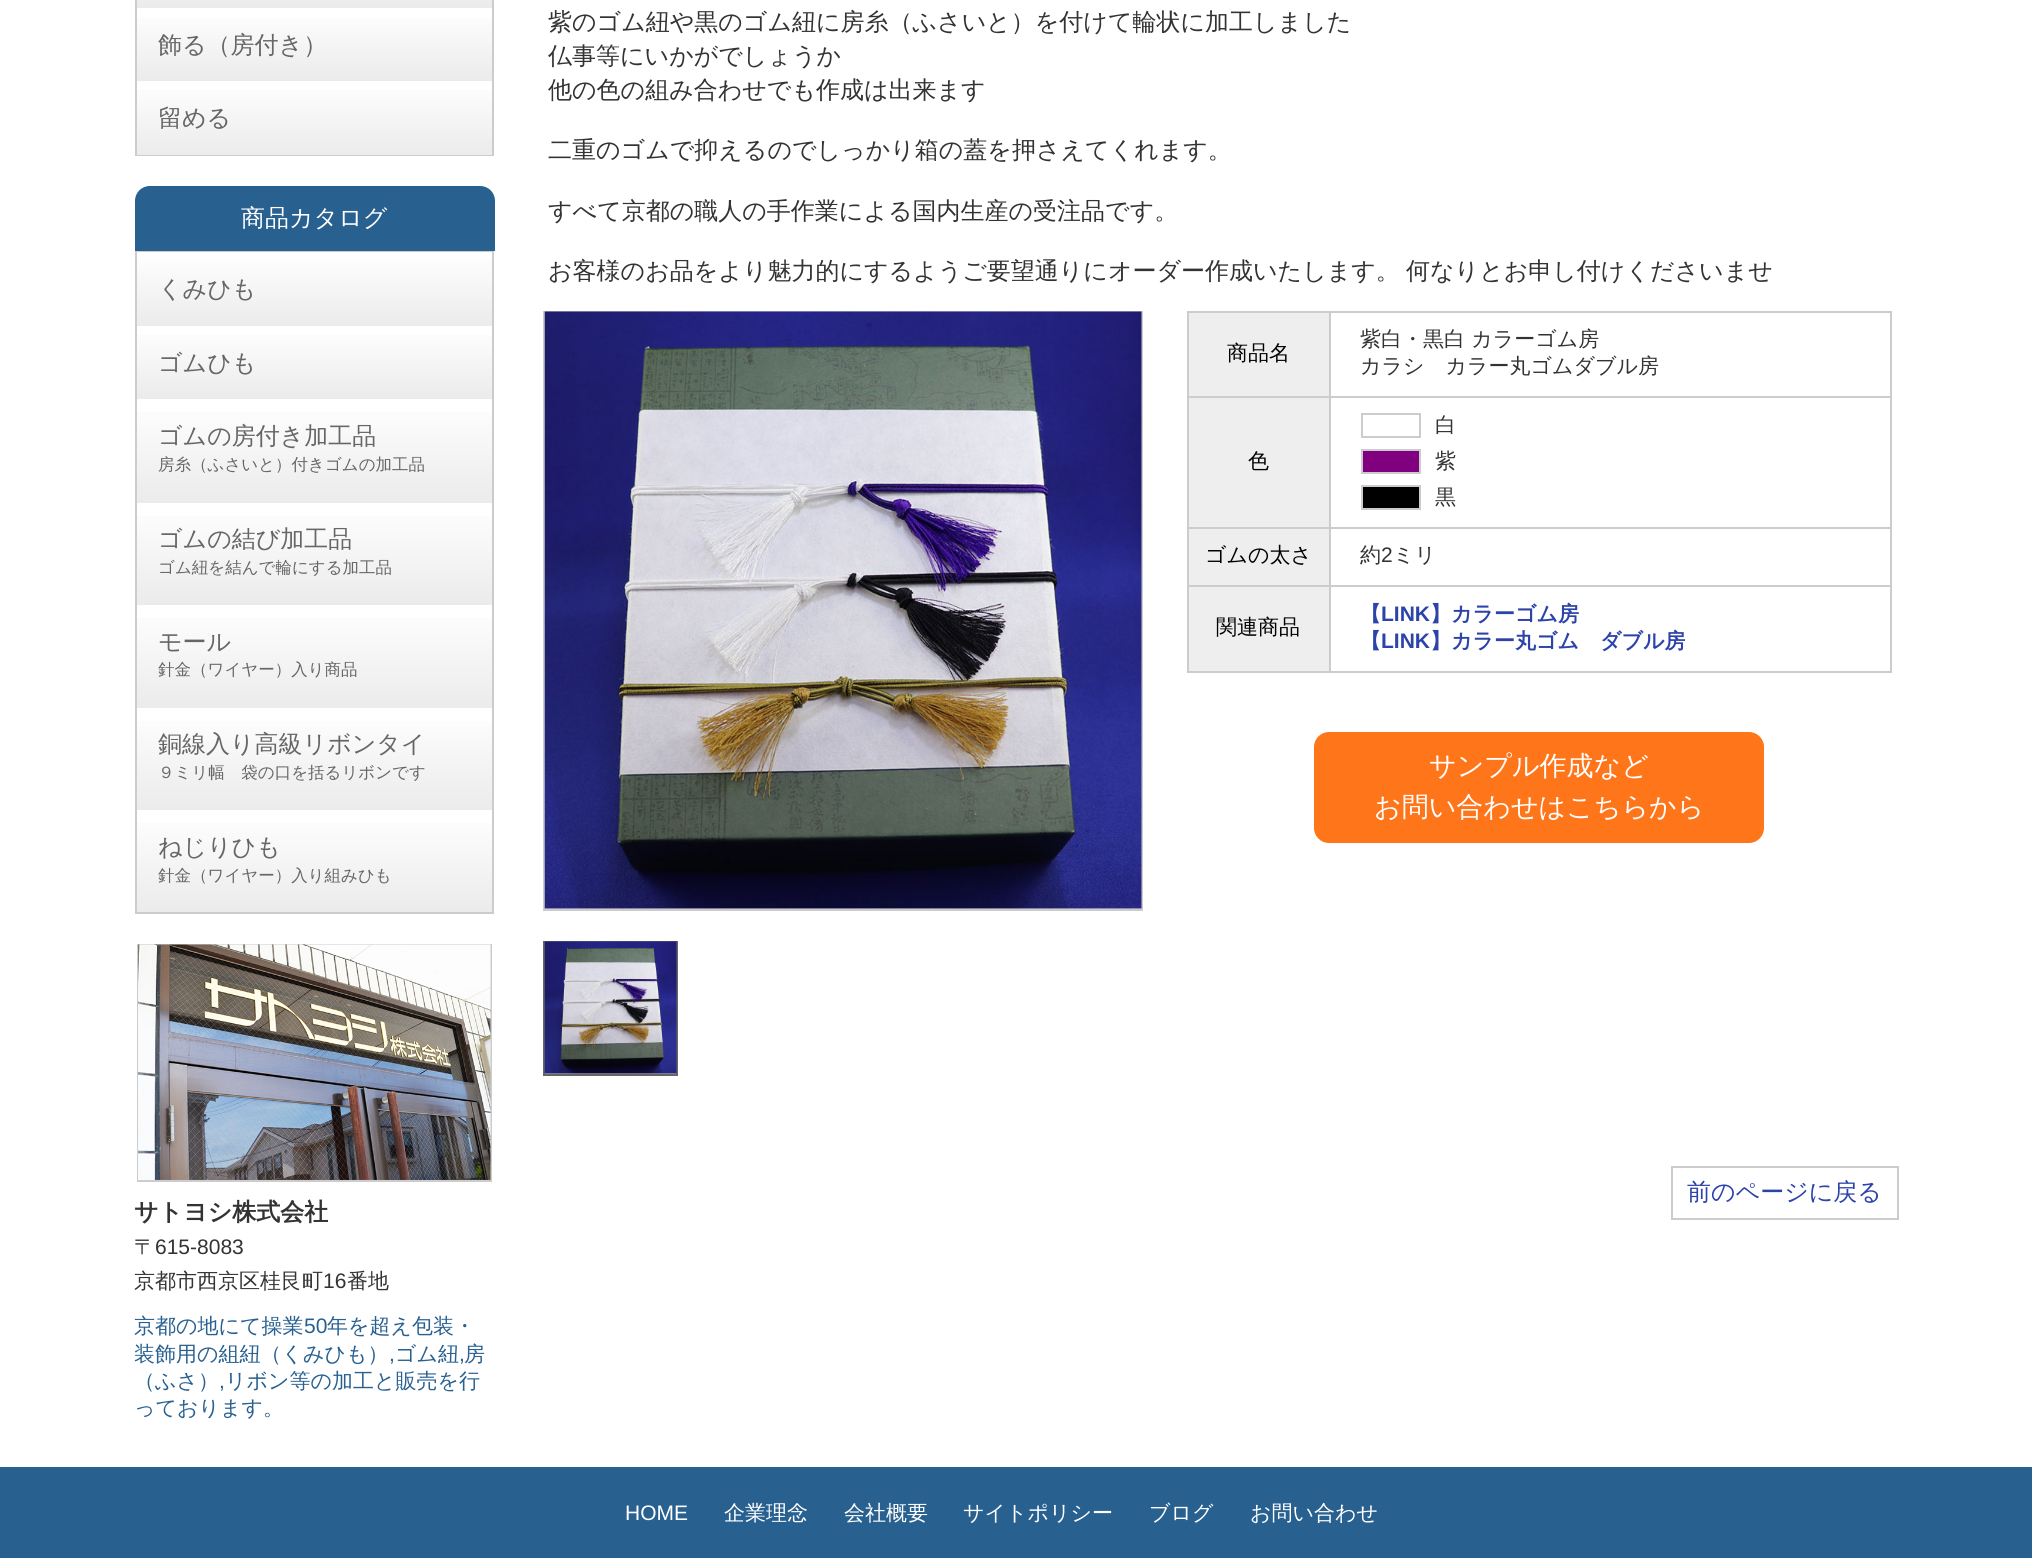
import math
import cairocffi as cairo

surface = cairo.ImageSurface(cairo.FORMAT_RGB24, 2032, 1558)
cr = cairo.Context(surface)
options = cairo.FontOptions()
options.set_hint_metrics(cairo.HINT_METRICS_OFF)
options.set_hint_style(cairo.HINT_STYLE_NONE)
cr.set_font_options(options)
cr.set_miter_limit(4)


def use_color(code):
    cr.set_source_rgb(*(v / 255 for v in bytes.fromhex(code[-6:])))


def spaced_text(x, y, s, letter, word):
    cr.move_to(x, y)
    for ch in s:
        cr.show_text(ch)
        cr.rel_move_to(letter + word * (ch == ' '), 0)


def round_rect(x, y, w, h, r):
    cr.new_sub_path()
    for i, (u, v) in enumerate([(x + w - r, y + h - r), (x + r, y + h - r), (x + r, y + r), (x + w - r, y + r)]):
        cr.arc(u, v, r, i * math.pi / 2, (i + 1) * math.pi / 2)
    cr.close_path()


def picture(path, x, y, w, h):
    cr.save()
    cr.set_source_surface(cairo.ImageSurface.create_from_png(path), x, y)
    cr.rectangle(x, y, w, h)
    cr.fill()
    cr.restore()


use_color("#ffffff")
cr.paint()
cr.rectangle(136, -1, 357, 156)
use_color("#cccccc")
cr.stroke()
gradient = cairo.LinearGradient(314, -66, 314, 7.5)
gradient.add_color_stop_rgba(0, 1, 1, 1, 1)
gradient.add_color_stop_rgba(1, 0.922, 0.922, 0.922, 1)
cr.set_source(gradient)
cr.rectangle(137, 0, 355, 8)
cr.fill()
gradient = cairo.LinearGradient(314, 7.5, 314, 81)
gradient.add_color_stop_rgba(0, 1, 1, 1, 1)
gradient.add_color_stop_rgba(1, 0.922, 0.922, 0.922, 1)
cr.set_source(gradient)
cr.rectangle(137, 17, 355, 64)
cr.fill()
cr.select_font_face("WenQuanYi Zen Hei Medium")
cr.set_font_size(24)
use_color("#666666")
cr.move_to(158, 53)
cr.show_text("飾る（房付き）")
gradient = cairo.LinearGradient(314, 81, 314, 155)
gradient.add_color_stop_rgba(0, 1, 1, 1, 1)
gradient.add_color_stop_rgba(1, 0.922, 0.922, 0.922, 1)
cr.set_source(gradient)
cr.rectangle(137, 90, 355, 65)
cr.fill()
use_color("#666666")
cr.move_to(158, 126)
cr.show_text("留める")
use_color("#286090")
cr.new_path()
cr.move_to(150, 186)
cr.line_to(480, 186)
cr.curve_to(488.5, 186, 495, 192.5, 495, 201)
cr.line_to(495, 251)
cr.line_to(135, 251)
cr.line_to(135, 201)
cr.curve_to(135, 192.5, 141.5, 186, 150, 186)
cr.close_path()
cr.fill()
use_color("#ffffff")
cr.move_to(241, 226)
cr.show_text("商品カタログ")
cr.rectangle(136, 252, 357, 661)
use_color("#cccccc")
cr.stroke()
gradient = cairo.LinearGradient(314, 252, 314, 326)
gradient.add_color_stop_rgba(0, 1, 1, 1, 1)
gradient.add_color_stop_rgba(1, 0.922, 0.922, 0.922, 1)
cr.set_source(gradient)
cr.rectangle(137, 252, 355, 74)
cr.fill()
use_color("#666666")
cr.move_to(158, 297)
cr.show_text("くみひも")
gradient = cairo.LinearGradient(314, 326, 314, 399)
gradient.add_color_stop_rgba(0, 1, 1, 1, 1)
gradient.add_color_stop_rgba(1, 0.922, 0.922, 0.922, 1)
cr.set_source(gradient)
cr.rectangle(137, 335, 355, 64)
cr.fill()
use_color("#666666")
cr.move_to(158, 371)
cr.show_text("ゴムひも")
gradient = cairo.LinearGradient(314, 399, 314, 503)
gradient.add_color_stop_rgba(0, 1, 1, 1, 1)
gradient.add_color_stop_rgba(1, 0.922, 0.922, 0.922, 1)
cr.set_source(gradient)
cr.rectangle(137, 412, 355, 91)
cr.fill()
use_color("#666666")
cr.move_to(158, 444)
cr.show_text("ゴムの房付き加工品")
cr.set_font_size(16.5)
cr.move_to(158, 470)
cr.show_text("房糸（ふさいと）付きゴムの加工品")
gradient = cairo.LinearGradient(314, 503, 314, 605)
gradient.add_color_stop_rgba(0, 1, 1, 1, 1)
gradient.add_color_stop_rgba(1, 0.922, 0.922, 0.922, 1)
cr.set_source(gradient)
cr.rectangle(137, 516, 355, 89)
cr.fill()
cr.set_font_size(24)
use_color("#666666")
cr.move_to(158, 547)
cr.show_text("ゴムの結び加工品")
cr.set_font_size(16.5)
cr.move_to(158, 573)
cr.show_text("ゴム紐を結んで輪にする加工品")
gradient = cairo.LinearGradient(314, 605, 314, 708)
gradient.add_color_stop_rgba(0, 1, 1, 1, 1)
gradient.add_color_stop_rgba(1, 0.922, 0.922, 0.922, 1)
cr.set_source(gradient)
cr.rectangle(137, 618, 355, 90)
cr.fill()
cr.set_font_size(24)
use_color("#666666")
cr.move_to(158, 650)
cr.show_text("モール")
cr.set_font_size(16.5)
cr.move_to(158, 675)
cr.show_text("針金（ワイヤー）入り商品")
gradient = cairo.LinearGradient(314, 708, 314, 810)
gradient.add_color_stop_rgba(0, 1, 1, 1, 1)
gradient.add_color_stop_rgba(1, 0.922, 0.922, 0.922, 1)
cr.set_source(gradient)
cr.rectangle(137, 721, 355, 89)
cr.fill()
cr.set_font_size(24)
use_color("#666666")
cr.move_to(158, 752)
cr.show_text("銅線入り高級リボンタイ")
cr.set_font_size(16.5)
cr.move_to(158, 778)
cr.show_text("９ミリ幅　袋の口を括るリボンです")
gradient = cairo.LinearGradient(314, 810, 314, 912)
gradient.add_color_stop_rgba(0, 1, 1, 1, 1)
gradient.add_color_stop_rgba(1, 0.922, 0.922, 0.922, 1)
cr.set_source(gradient)
cr.rectangle(137, 823, 355, 89)
cr.fill()
cr.set_font_size(24)
use_color("#666666")
cr.move_to(158, 855)
cr.show_text("ねじりひも")
cr.set_font_size(16.5)
cr.move_to(158, 881)
cr.show_text("針金（ワイヤー）入り組みひも")
cr.rectangle(138, 945, 353, 236)
use_color("#cccccc")
cr.stroke()
picture("img1.png", 138, 944, 353, 236)
cr.select_font_face("WenQuanYi Zen Hei", cairo.FONT_SLANT_NORMAL, cairo.FONT_WEIGHT_BOLD)
cr.set_font_size(24)
use_color("#333333")
cr.move_to(134, 1220)
cr.show_text("サトヨシ株式会社")
cr.select_font_face("WenQuanYi Zen Hei Medium")
cr.set_font_size(21)
cr.move_to(134, 1254)
cr.show_text("〒")
cr.select_font_face("Liberation Sans")
cr.move_to(155, 1254)
cr.show_text("615-8083")
cr.select_font_face("WenQuanYi Zen Hei Medium")
cr.move_to(134, 1288)
cr.show_text("京都市西京区桂艮町")
cr.select_font_face("Liberation Sans")
cr.move_to(323, 1288)
cr.show_text("16")
cr.select_font_face("WenQuanYi Zen Hei Medium")
cr.move_to(347, 1288)
cr.show_text("番地")
use_color("#286090")
cr.move_to(134, 1333)
cr.show_text("京都の地にて操業")
cr.select_font_face("Liberation Sans")
cr.move_to(304, 1333)
cr.show_text("50")
cr.select_font_face("WenQuanYi Zen Hei Medium")
cr.move_to(327, 1333)
cr.show_text("年を超え包装・")
cr.move_to(134, 1361)
cr.show_text("装飾用の組紐（くみひも）")
cr.select_font_face("Liberation Sans")
cr.move_to(389, 1361)
cr.show_text(",")
cr.select_font_face("WenQuanYi Zen Hei Medium")
cr.move_to(395, 1361)
cr.show_text("ゴム紐")
cr.select_font_face("Liberation Sans")
cr.move_to(459, 1361)
cr.show_text(",")
cr.select_font_face("WenQuanYi Zen Hei Medium")
cr.move_to(464, 1361)
cr.show_text("房")
cr.move_to(134, 1388)
cr.show_text("（ふさ）")
cr.select_font_face("Liberation Sans")
cr.move_to(219, 1388)
cr.show_text(",")
cr.select_font_face("WenQuanYi Zen Hei Medium")
cr.move_to(225, 1388)
cr.show_text("リボン等の加工と販売を行")
cr.move_to(134, 1415)
cr.show_text("っております。")
cr.set_font_size(24)
use_color("#333333")
cr.move_to(548, 30)
cr.show_text("紫のゴム紐や黒のゴム紐に房糸（ふさいと）を付けて輪状に加工しました")
cr.move_to(548, 64)
cr.show_text("仏事等にいかがでしょうか")
cr.move_to(548, 98)
cr.show_text("他の色の組み合わせでも作成は出来ます")
cr.move_to(548, 158)
cr.show_text("二重のゴムで抑えるのでしっかり箱の蓋を押さえてくれます。")
cr.move_to(548, 219)
cr.show_text("すべて京都の職人の手作業による国内生産の受注品です。")
spaced_text(548, 279, "お客様のお品をより魅力的にするようご要望通りにオーダー作成いたします。 何なりとお申し付けくださいませ", 0, -1)
use_color("#eeeeee")
cr.rectangle(545, 908, 596, 1)
cr.fill()
cr.rectangle(544, 312, 598, 598)
use_color("#cccccc")
cr.stroke()
picture("img2.png", 544, 311, 598, 598)
cr.rectangle(545, 1073, 131, 1)
cr.fill()
cr.rectangle(544, 942, 133, 133)
use_color("#666666")
cr.stroke()
picture("img3.png", 544, 941, 133, 133)
use_color("#eeeeee")
cr.rectangle(1189, 313, 140, 83)
cr.fill()
use_color("#cccccc")
cr.rectangle(1329, 311, 563, 2)
cr.fill()
cr.rectangle(1329, 396, 563, 2)
cr.fill()
cr.rectangle(1329, 527, 563, 2)
cr.fill()
cr.rectangle(1329, 585, 563, 2)
cr.fill()
cr.rectangle(1890, 585, 2, 87)
cr.fill()
cr.rectangle(1329, 671, 563, 2)
cr.fill()
cr.rectangle(1329, 585, 2, 87)
cr.fill()
cr.rectangle(1187, 585, 144, 2)
cr.fill()
cr.rectangle(1329, 527, 2, 60)
cr.fill()
cr.rectangle(1187, 527, 144, 2)
cr.fill()
cr.rectangle(1329, 396, 2, 132)
cr.fill()
cr.rectangle(1187, 396, 144, 2)
cr.fill()
cr.rectangle(1329, 311, 2, 87)
cr.fill()
cr.rectangle(1187, 311, 144, 2)
cr.fill()
cr.rectangle(1187, 671, 144, 2)
cr.fill()
cr.rectangle(1187, 585, 2, 87)
cr.fill()
cr.rectangle(1187, 527, 2, 60)
cr.fill()
cr.rectangle(1187, 396, 2, 132)
cr.fill()
cr.rectangle(1187, 311, 2, 87)
cr.fill()
cr.set_font_size(21)
use_color("#000000")
cr.move_to(1227, 360)
cr.show_text("商品名")
use_color("#cccccc")
cr.rectangle(1890, 527, 2, 60)
cr.fill()
cr.rectangle(1890, 396, 2, 132)
cr.fill()
cr.rectangle(1890, 311, 2, 87)
cr.fill()
use_color("#333333")
cr.move_to(1360, 346)
cr.show_text("紫白・黒白 カラーゴム房")
cr.move_to(1360, 373)
cr.show_text("カラシ　カラー丸ゴムダブル房")
use_color("#eeeeee")
cr.rectangle(1189, 398, 140, 129)
cr.fill()
use_color("#000000")
cr.move_to(1248, 468)
cr.show_text("色")
cr.rectangle(1362, 414, 58, 23)
use_color("#cccccc")
cr.stroke()
use_color("#333333")
cr.move_to(1435, 432)
cr.show_text("白")
use_color("#800080")
cr.rectangle(1362, 450, 58, 23)
cr.fill_preserve()
use_color("#cccccc")
cr.stroke()
use_color("#333333")
cr.move_to(1435, 468)
cr.show_text("紫")
use_color("#000000")
cr.rectangle(1362, 486, 58, 23)
cr.fill_preserve()
use_color("#cccccc")
cr.stroke()
use_color("#333333")
cr.move_to(1435, 504)
cr.show_text("黒")
use_color("#eeeeee")
cr.rectangle(1189, 529, 140, 56)
cr.fill()
use_color("#000000")
cr.move_to(1205, 562)
cr.show_text("ゴムの太さ")
use_color("#333333")
cr.move_to(1360, 562)
cr.show_text("約")
cr.select_font_face("Liberation Sans")
cr.move_to(1381, 562)
cr.show_text("2")
cr.select_font_face("WenQuanYi Zen Hei Medium")
cr.move_to(1393, 562)
cr.show_text("ミリ")
use_color("#eeeeee")
cr.rectangle(1189, 587, 140, 84)
cr.fill()
use_color("#000000")
cr.move_to(1216, 634)
cr.show_text("関連商品")
cr.select_font_face("WenQuanYi Zen Hei", cairo.FONT_SLANT_NORMAL, cairo.FONT_WEIGHT_BOLD)
use_color("#2c43a9")
cr.move_to(1360, 621)
cr.show_text("【")
cr.select_font_face("Liberation Sans", cairo.FONT_SLANT_NORMAL, cairo.FONT_WEIGHT_BOLD)
cr.move_to(1381, 621)
cr.show_text("LINK")
cr.select_font_face("WenQuanYi Zen Hei", cairo.FONT_SLANT_NORMAL, cairo.FONT_WEIGHT_BOLD)
cr.move_to(1430, 621)
cr.show_text("】カラーゴム房")
cr.move_to(1360, 648)
cr.show_text("【")
cr.select_font_face("Liberation Sans", cairo.FONT_SLANT_NORMAL, cairo.FONT_WEIGHT_BOLD)
cr.move_to(1381, 648)
cr.show_text("LINK")
cr.select_font_face("WenQuanYi Zen Hei", cairo.FONT_SLANT_NORMAL, cairo.FONT_WEIGHT_BOLD)
cr.move_to(1430, 648)
cr.show_text("】カラー丸ゴム　ダブル房")
use_color("#ff751a")
round_rect(1314, 732, 450, 111, 15)
cr.fill()
cr.select_font_face("WenQuanYi Zen Hei Medium")
cr.set_font_size(27)
use_color("#ffffff")
cr.move_to(1429, 775)
cr.show_text("サンプル作成など")
cr.move_to(1374, 816)
cr.show_text("お問い合わせはこちらから")
cr.rectangle(1672, 1167, 226, 52)
use_color("#cccccc")
cr.stroke()
cr.set_font_size(24)
use_color("#2c43a9")
cr.move_to(1687, 1200)
cr.show_text("前のページに戻る")
use_color("#286090")
cr.rectangle(0, 1467, 2032, 91)
cr.fill()
cr.select_font_face("Liberation Sans")
cr.set_font_size(21)
use_color("#ffffff")
cr.move_to(625, 1520)
cr.show_text("HOME")
cr.select_font_face("WenQuanYi Zen Hei Medium")
cr.move_to(724, 1520)
cr.show_text("企業理念")
cr.move_to(844, 1520)
cr.show_text("会社概要")
cr.move_to(963, 1520)
cr.show_text("サイトポリシー")
cr.move_to(1149, 1520)
cr.show_text("ブログ")
cr.move_to(1250, 1520)
cr.show_text("お問い合わせ")
surface.write_to_png("result.png")
